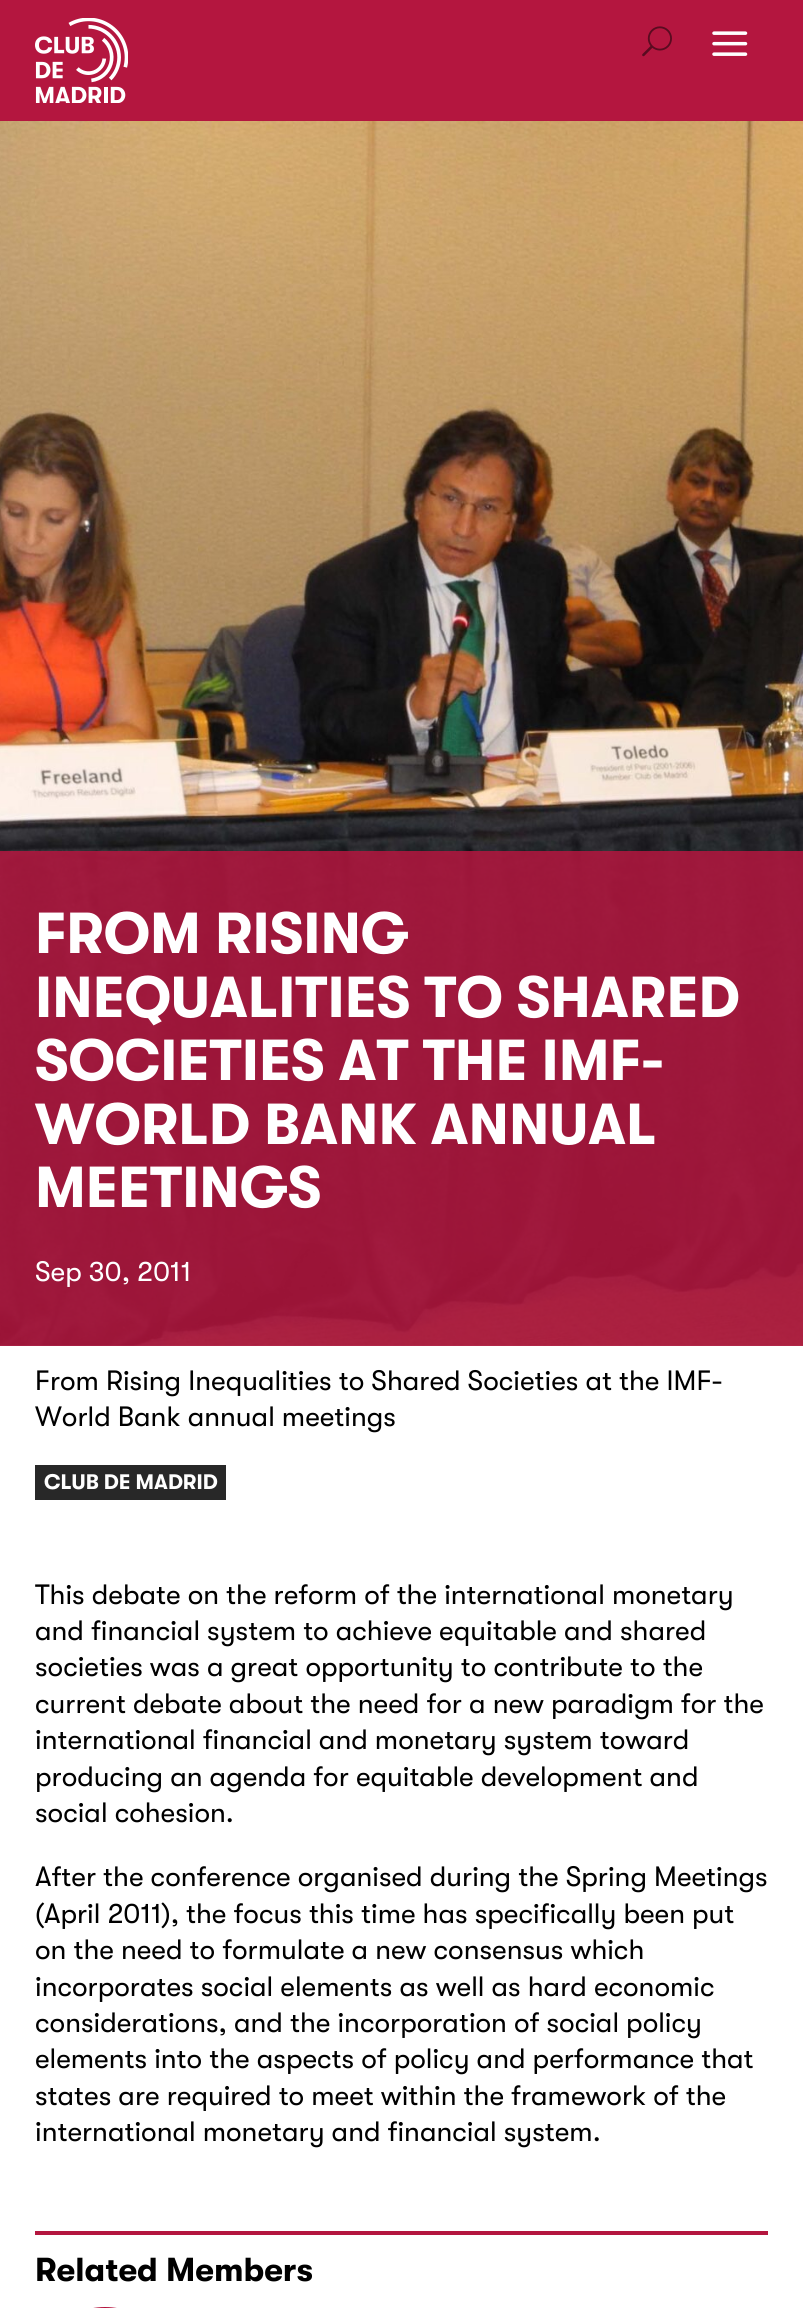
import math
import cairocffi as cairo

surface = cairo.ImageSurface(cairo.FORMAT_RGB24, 803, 2308)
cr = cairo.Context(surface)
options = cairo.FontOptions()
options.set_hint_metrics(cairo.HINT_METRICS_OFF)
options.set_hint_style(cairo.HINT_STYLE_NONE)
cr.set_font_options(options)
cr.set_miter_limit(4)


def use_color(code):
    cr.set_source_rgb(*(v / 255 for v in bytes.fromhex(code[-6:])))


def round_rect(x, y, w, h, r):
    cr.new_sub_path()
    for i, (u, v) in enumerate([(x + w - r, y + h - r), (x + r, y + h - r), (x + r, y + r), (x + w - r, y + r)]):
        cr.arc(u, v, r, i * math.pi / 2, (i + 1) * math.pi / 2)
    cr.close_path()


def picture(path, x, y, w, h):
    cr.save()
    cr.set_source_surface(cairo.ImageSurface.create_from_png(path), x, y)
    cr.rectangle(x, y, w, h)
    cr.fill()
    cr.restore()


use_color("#ffffff")
cr.paint()
use_color("#b4163f")
cr.rectangle(0, 0, 803, 121)
cr.fill()
picture("img1.png", 35, 18, 93, 85)
picture("img2.png", 642, 26, 30, 31)
picture("img3.png", 712, 31, 36, 25)
picture("img4.png", 0, 121, 803, 1225)
cr.set_source_rgba(0.706, 0.086, 0.247, 0.85)
cr.rectangle(0, 851, 803, 495)
cr.fill()
cr.select_font_face("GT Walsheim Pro", cairo.FONT_SLANT_NORMAL, cairo.FONT_WEIGHT_BOLD)
cr.set_font_size(57.75)
use_color("#ffffff")
cr.move_to(35, 953)
cr.show_text("FROM RISING")
cr.move_to(35, 1017)
cr.show_text("INEQUALITIES TO SHARED")
cr.move_to(35, 1080)
cr.show_text("SOCIETIES AT THE IMF-")
cr.move_to(35, 1144)
cr.show_text("WORLD BANK ANNUAL")
cr.move_to(35, 1207)
cr.show_text("MEETINGS")
cr.select_font_face("GT Walsheim Pro")
cr.set_font_size(28)
cr.move_to(35, 1281)
cr.show_text("Sep 30, 2011")
use_color("#000000")
cr.move_to(35, 1390)
cr.show_text("From Rising Inequalities to Shared Societies at the IMF-")
cr.move_to(35, 1426)
cr.show_text("World Bank annual meetings")
use_color("#282828")
cr.rectangle(35, 1465, 191, 35)
cr.fill()
cr.select_font_face("GT Walsheim Pro", cairo.FONT_SLANT_NORMAL, cairo.FONT_WEIGHT_BOLD)
cr.set_font_size(21)
use_color("#ffffff")
cr.move_to(44, 1489)
cr.show_text("CLUB DE MADRID")
cr.select_font_face("GT Walsheim Pro")
cr.set_font_size(28)
use_color("#000000")
cr.move_to(35, 1604)
cr.show_text("This debate on the reform of the international monetary")
cr.move_to(35, 1640)
cr.show_text("and financial system to achieve equitable and shared")
cr.move_to(35, 1676)
cr.show_text("societies was a great opportunity to contribute to the")
cr.move_to(35, 1713)
cr.show_text("current debate about the need for a new paradigm for the")
cr.move_to(35, 1749)
cr.show_text("international financial and monetary system toward")
cr.move_to(35, 1786)
cr.show_text("producing an agenda for equitable development and")
cr.move_to(35, 1822)
cr.show_text("social cohesion.")
cr.move_to(35, 1886)
cr.show_text("After the conference organised during the Spring Meetings")
cr.move_to(35, 1923)
cr.show_text("(April 2011), the focus this time has specifically been put")
cr.move_to(35, 1959)
cr.show_text("on the need to formulate a new consensus which")
cr.move_to(35, 1996)
cr.show_text("incorporates social elements as well as hard economic")
cr.move_to(35, 2032)
cr.show_text("considerations, and the incorporation of social policy")
cr.move_to(35, 2068)
cr.show_text("elements into the aspects of policy and performance that")
cr.move_to(35, 2105)
cr.show_text("states are required to meet within the framework of the")
cr.move_to(35, 2141)
cr.show_text("international monetary and financial system.")
use_color("#b4163f")
cr.rectangle(35, 2231, 733, 4)
cr.fill()
cr.select_font_face("GT Walsheim Pro", cairo.FONT_SLANT_NORMAL, cairo.FONT_WEIGHT_BOLD)
cr.set_font_size(33.25)
use_color("#000000")
cr.move_to(35, 2281)
cr.show_text("Related Members")
round_rect(37.5, 2309.5, 135, 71, 67.5)
use_color("#b4163f")
cr.set_line_width(5)
cr.stroke()
surface.write_to_png("result.png")
